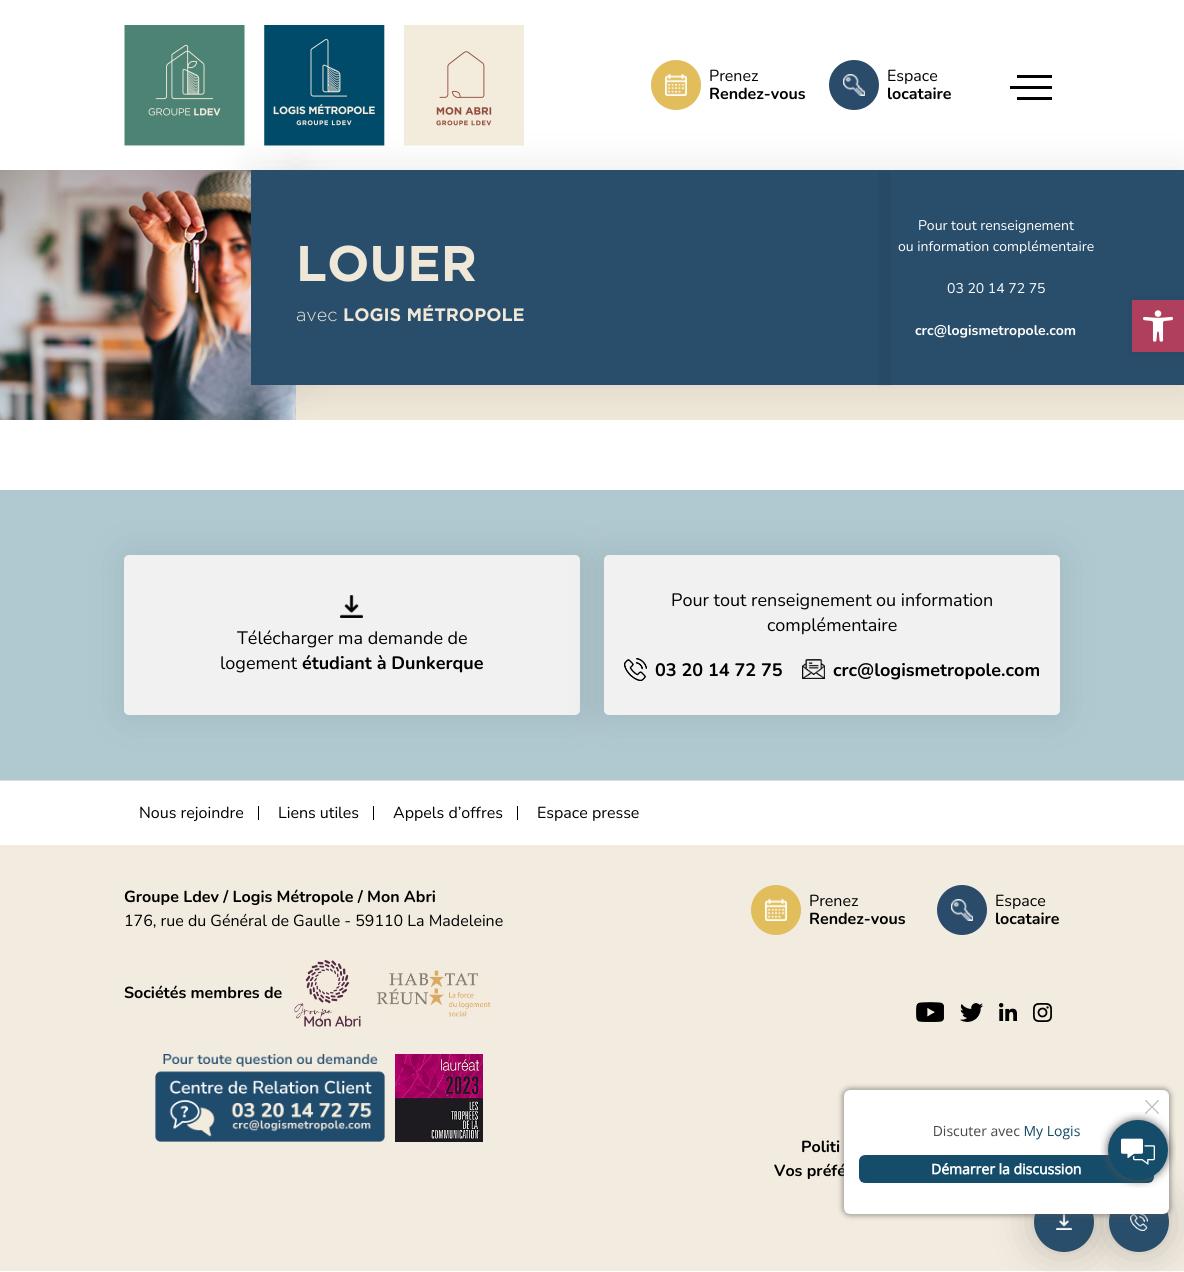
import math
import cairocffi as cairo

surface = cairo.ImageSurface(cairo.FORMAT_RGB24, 1184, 1272)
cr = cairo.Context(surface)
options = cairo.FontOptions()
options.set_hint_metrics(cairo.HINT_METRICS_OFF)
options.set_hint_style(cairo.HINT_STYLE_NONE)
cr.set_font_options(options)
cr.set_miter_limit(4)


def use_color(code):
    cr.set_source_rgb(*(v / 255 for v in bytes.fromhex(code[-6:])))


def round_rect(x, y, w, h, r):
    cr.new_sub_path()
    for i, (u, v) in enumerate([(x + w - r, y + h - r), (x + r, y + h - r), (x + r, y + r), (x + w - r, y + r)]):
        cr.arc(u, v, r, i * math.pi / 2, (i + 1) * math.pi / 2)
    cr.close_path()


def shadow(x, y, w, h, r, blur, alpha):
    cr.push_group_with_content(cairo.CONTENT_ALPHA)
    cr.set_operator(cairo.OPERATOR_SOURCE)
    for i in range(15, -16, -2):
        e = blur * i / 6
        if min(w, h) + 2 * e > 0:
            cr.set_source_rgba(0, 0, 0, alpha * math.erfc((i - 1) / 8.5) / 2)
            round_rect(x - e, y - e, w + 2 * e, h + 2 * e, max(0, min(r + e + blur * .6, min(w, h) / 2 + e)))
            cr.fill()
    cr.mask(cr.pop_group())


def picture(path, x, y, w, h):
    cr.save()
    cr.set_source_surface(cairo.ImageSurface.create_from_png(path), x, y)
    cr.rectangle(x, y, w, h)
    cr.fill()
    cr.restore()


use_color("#ffffff")
cr.paint()
use_color("#efe7d8")
cr.rectangle(296, 385, 888, 35)
cr.fill()
picture("img4.png", 0, 170, 296, 250)
use_color("#000000")
shadow(296, 170, 888, 215, 0, 20, 0.1)
use_color("#294e6b")
cr.rectangle(351, 170, 833, 215)
cr.fill()
use_color("#000000")
shadow(251, 170, 45, 215, 0, 20, 0.1)
picture("img1.png", 124, 25, 400, 121)
use_color("#e2bd5c")
cr.arc(676, 85, 25, 0, 2 * math.pi)
cr.fill()
picture("img2.png", 665, 74, 22, 22)
cr.select_font_face("Nunito")
cr.set_font_size(16)
use_color("#000000")
cr.move_to(709, 81)
cr.show_text("Prenez")
cr.select_font_face("Nunito", cairo.FONT_SLANT_NORMAL, cairo.FONT_WEIGHT_BOLD)
cr.move_to(709, 99)
cr.show_text("Rendez-vous")
use_color("#2a4c6a")
cr.new_path()
cr.arc(854, 85, 25, 0, 2 * math.pi)
cr.fill()
picture("img3.png", 843, 74, 22, 22)
cr.select_font_face("Nunito")
use_color("#000000")
cr.move_to(887, 81)
cr.show_text("Espace")
cr.select_font_face("Nunito", cairo.FONT_SLANT_NORMAL, cairo.FONT_WEIGHT_BOLD)
cr.move_to(887, 99)
cr.show_text("locataire")
cr.rectangle(1017, 75, 35, 3)
cr.fill()
cr.rectangle(1010, 86, 42, 3)
cr.fill()
cr.rectangle(1017, 97, 35, 3)
cr.fill()
use_color("#294e6b")
cr.rectangle(251, 170, 100, 215)
cr.fill()
cr.select_font_face("Gotham", cairo.FONT_SLANT_NORMAL, cairo.FONT_WEIGHT_BOLD)
cr.set_font_size(50)
use_color("#efe7d8")
cr.move_to(296, 281)
cr.show_text("LOUER")
cr.select_font_face("Gotham Light")
cr.set_font_size(18)
cr.move_to(296, 321)
cr.show_text("avec")
cr.select_font_face("Gotham", cairo.FONT_SLANT_NORMAL, cairo.FONT_WEIGHT_BOLD)
cr.move_to(343, 321)
cr.show_text("LOGIS MÉTROPOLE")
cr.set_source_rgba(0, 0, 0, 0.04)
cr.rectangle(878, 171, 13, 215)
cr.fill()
cr.select_font_face("Nunito")
cr.set_font_size(14)
use_color("#ffffff")
cr.move_to(918, 230)
cr.show_text("Pour tout renseignement")
cr.move_to(898, 251)
cr.show_text("ou information complémentaire")
cr.move_to(947, 293)
cr.show_text("03 20 14 72 75")
cr.select_font_face("Nunito", cairo.FONT_SLANT_NORMAL, cairo.FONT_WEIGHT_BOLD)
cr.move_to(915, 335)
cr.show_text("crc@logismetropole.com")
use_color("#b0c9d0")
cr.rectangle(0, 490, 1184, 290)
cr.fill()
use_color("#000000")
shadow(124, 555, 456, 160, 5, 20, 0.1)
use_color("#f1f1f1")
round_rect(124, 555, 456, 160, 5)
cr.fill()
picture("img5.png", 340, 595, 23, 23)
cr.select_font_face("Nunito")
cr.set_font_size(18)
use_color("#000000")
cr.move_to(237, 644)
cr.show_text("Télécharger ma demande de")
cr.move_to(220, 669)
cr.show_text("logement")
cr.select_font_face("Nunito", cairo.FONT_SLANT_NORMAL, cairo.FONT_WEIGHT_BOLD)
cr.move_to(302, 669)
cr.show_text("étudiant à Dunkerque")
use_color("#000000")
shadow(604, 555, 456, 160, 5, 20, 0.1)
use_color("#f1f1f1")
round_rect(604, 555, 456, 160, 5)
cr.fill()
cr.select_font_face("Nunito")
use_color("#000000")
cr.move_to(671, 606)
cr.show_text("Pour tout renseignement ou information")
cr.move_to(767, 631)
cr.show_text("complémentaire")
picture("img6.png", 624, 658, 23, 23)
cr.select_font_face("Nunito", cairo.FONT_SLANT_NORMAL, cairo.FONT_WEIGHT_BOLD)
cr.move_to(655, 676)
cr.show_text("03 20 14 72 75")
picture("img7.png", 802, 659, 23, 20)
cr.move_to(833, 676)
cr.show_text("crc@logismetropole.com")
use_color("#dddddd")
cr.rectangle(0, 780, 1184, 1)
cr.fill()
cr.select_font_face("Nunito")
cr.set_font_size(16)
use_color("#000000")
cr.move_to(139, 818)
cr.show_text("Nous rejoindre")
cr.rectangle(258, 806, 1, 14)
cr.fill()
cr.move_to(278, 818)
cr.show_text("Liens utiles")
cr.rectangle(373, 806, 1, 14)
cr.fill()
cr.move_to(393, 818)
cr.show_text("Appels d’offres")
cr.rectangle(517, 806, 1, 14)
cr.fill()
cr.move_to(537, 818)
cr.show_text("Espace presse")
use_color("#f2ebdf")
cr.rectangle(0, 845, 1184, 426)
cr.fill()
cr.select_font_face("Nunito", cairo.FONT_SLANT_NORMAL, cairo.FONT_WEIGHT_BOLD)
use_color("#000000")
cr.move_to(124, 902)
cr.show_text("Groupe Ldev / Logis Métropole / Mon Abri")
cr.select_font_face("Nunito")
cr.move_to(124, 926)
cr.show_text("176, rue du Général de Gaulle - 59110 La Madeleine")
cr.select_font_face("Nunito", cairo.FONT_SLANT_NORMAL, cairo.FONT_WEIGHT_BOLD)
cr.move_to(124, 998)
cr.show_text("Sociétés membres de")
picture("img8.png", 294, 960, 67, 67)
picture("img9.png", 376, 970, 115, 47)
picture("img10.png", 155, 1054, 230, 88)
picture("img11.png", 395, 1054, 88, 88)
use_color("#e2bd5c")
cr.arc(776, 910, 25, 0, 2 * math.pi)
cr.fill()
picture("img2.png", 765, 899, 22, 22)
cr.select_font_face("Nunito")
use_color("#000000")
cr.move_to(809, 906)
cr.show_text("Prenez")
cr.select_font_face("Nunito", cairo.FONT_SLANT_NORMAL, cairo.FONT_WEIGHT_BOLD)
cr.move_to(809, 924)
cr.show_text("Rendez-vous")
use_color("#2a4c6a")
cr.new_path()
cr.arc(962, 910, 25, 0, 2 * math.pi)
cr.fill()
picture("img3.png", 951, 899, 22, 22)
cr.select_font_face("Nunito")
use_color("#000000")
cr.move_to(995, 906)
cr.show_text("Espace")
cr.select_font_face("Nunito", cairo.FONT_SLANT_NORMAL, cairo.FONT_WEIGHT_BOLD)
cr.move_to(995, 924)
cr.show_text("locataire")
picture("img12.png", 916, 1002, 28, 20)
picture("img13.png", 960, 1003, 23, 19)
picture("img14.png", 999, 1003, 18, 18)
picture("img15.png", 1033, 1003, 19, 19)
cr.move_to(801, 1152)
cr.show_text("Politi")
cr.move_to(774, 1176)
cr.show_text("Vos préfé")
use_color("#000000")
shadow(1034, 1192, 60, 60, 30, 20, 0.2)
use_color("#294e6b")
cr.arc(1064, 1222, 30, 0, 2 * math.pi)
cr.fill()
picture("img16.png", 1056, 1214, 16, 16)
use_color("#000000")
shadow(1109, 1192, 60, 60, 30, 20, 0.2)
use_color("#294e6b")
cr.arc(1139, 1222, 30, 0, 2 * math.pi)
cr.fill()
picture("img17.png", 1130, 1214, 18, 17)
use_color("#000000")
shadow(1132, 300, 52, 52, 0, 5, 0.1)
use_color("#af3f5d")
cr.rectangle(1132, 300, 52, 52)
cr.fill()
picture("img18.png", 1143, 310, 30, 32)
use_color("#555555")
shadow(842, 1088, 329, 128, 8, 2.5, 0.49)
picture("img19.png", 844, 1090, 325, 124)
picture("img20.png", 1100, 1112, 76, 76)
surface.write_to_png("result.png")
